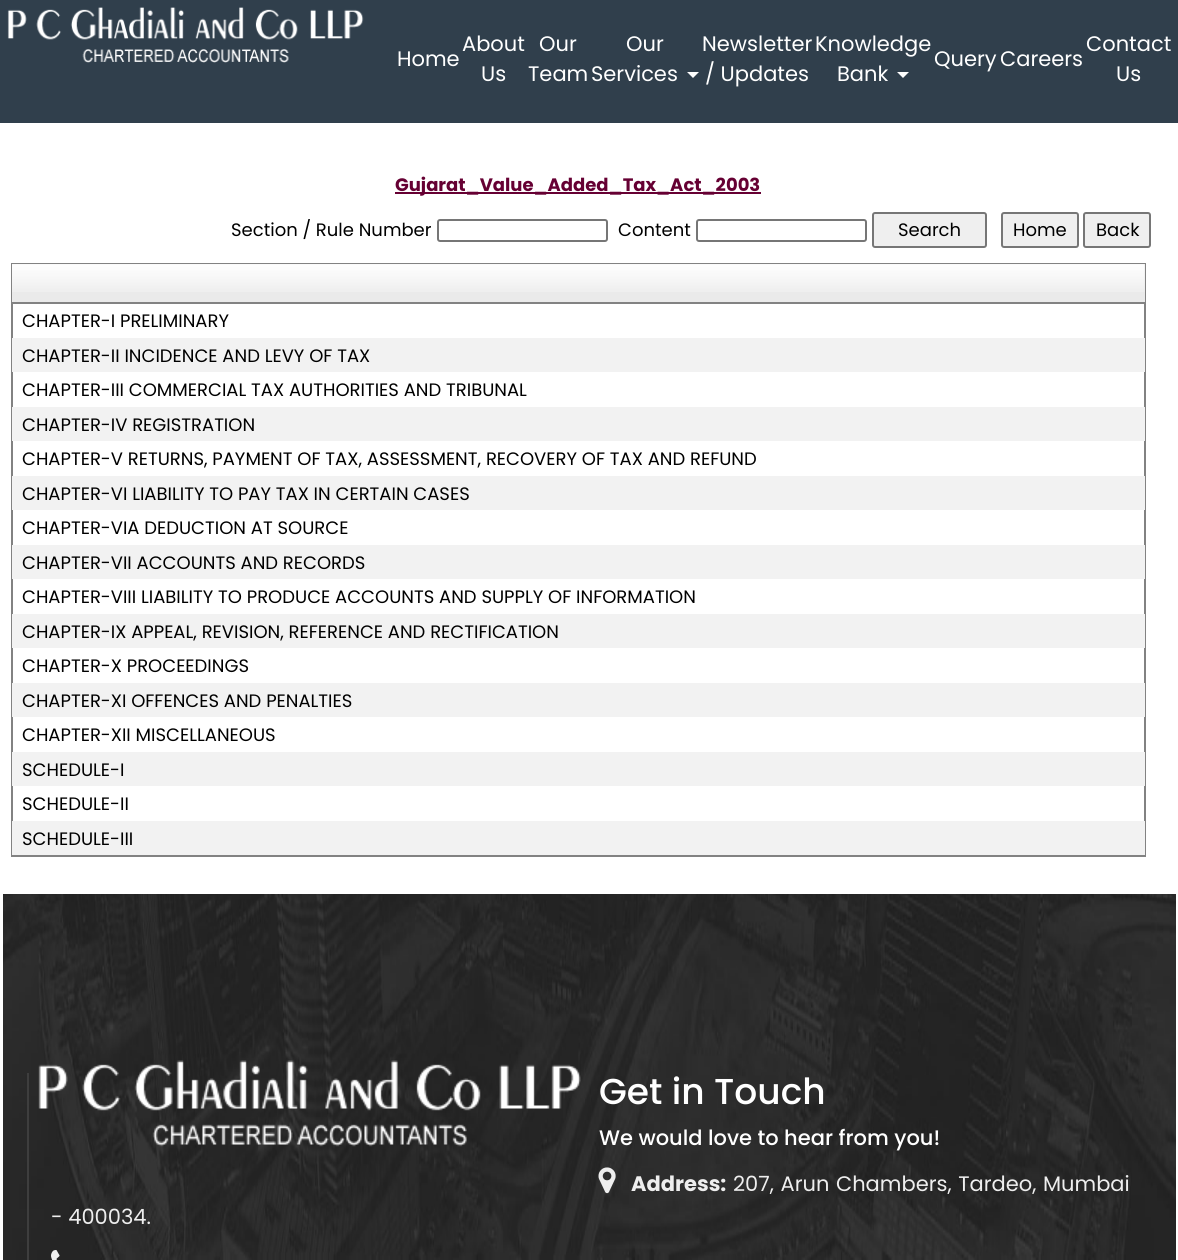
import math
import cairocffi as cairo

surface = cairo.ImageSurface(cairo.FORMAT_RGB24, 1178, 1260)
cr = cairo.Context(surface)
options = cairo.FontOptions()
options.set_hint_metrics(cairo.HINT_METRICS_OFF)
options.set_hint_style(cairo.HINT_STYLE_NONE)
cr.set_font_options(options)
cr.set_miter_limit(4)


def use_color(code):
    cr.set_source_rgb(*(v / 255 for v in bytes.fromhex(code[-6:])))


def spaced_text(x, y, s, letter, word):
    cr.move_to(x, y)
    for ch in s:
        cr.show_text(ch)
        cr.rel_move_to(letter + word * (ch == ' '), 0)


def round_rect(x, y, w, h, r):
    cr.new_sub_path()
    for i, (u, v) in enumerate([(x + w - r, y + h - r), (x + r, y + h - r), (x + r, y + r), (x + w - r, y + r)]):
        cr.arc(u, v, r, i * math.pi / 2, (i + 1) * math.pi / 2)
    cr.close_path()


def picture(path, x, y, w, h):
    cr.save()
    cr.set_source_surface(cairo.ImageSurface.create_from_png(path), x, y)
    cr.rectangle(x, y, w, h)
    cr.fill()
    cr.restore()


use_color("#ffffff")
cr.paint()
use_color("#303f4c")
cr.rectangle(0, 0, 1178, 123)
cr.fill()
picture("img1.png", 7, 7, 357, 56)
cr.select_font_face("Poppins")
cr.set_font_size(21)
use_color("#ffffff")
cr.move_to(397, 66)
cr.show_text("Home")
cr.move_to(462, 51)
cr.show_text("About")
cr.move_to(481, 81)
cr.show_text("Us")
cr.move_to(539, 51)
cr.show_text("Our")
cr.move_to(528, 81)
cr.show_text("Team")
cr.move_to(626, 51)
cr.show_text("Our")
cr.move_to(591, 81)
cr.show_text("Services")
cr.new_path()
cr.move_to(687, 72)
cr.line_to(699, 72)
cr.line_to(693, 78)
cr.close_path()
cr.fill()
cr.move_to(702, 51)
cr.show_text("Newsletter")
cr.move_to(705, 81)
cr.show_text("/ Updates")
cr.move_to(815, 51)
cr.show_text("Knowledge")
cr.move_to(837, 81)
cr.show_text("Bank")
cr.new_path()
cr.move_to(897, 72)
cr.line_to(909, 72)
cr.line_to(903, 78)
cr.close_path()
cr.fill()
cr.move_to(934, 66)
cr.show_text("Query")
cr.move_to(1000, 66)
cr.show_text("Careers")
cr.move_to(1086, 51)
cr.show_text("Contact")
cr.move_to(1116, 81)
cr.show_text("Us")
use_color("#660033")
cr.rectangle(395, 192, 366, 2)
cr.fill()
cr.select_font_face("Poppins", cairo.FONT_SLANT_NORMAL, cairo.FONT_WEIGHT_BOLD)
cr.set_font_size(18)
cr.move_to(395, 191)
cr.show_text("Gujarat_Value_Added_Tax_Act_2003")
cr.select_font_face("Poppins")
use_color("#000000")
cr.move_to(231, 236)
cr.show_text("Section / Rule Number")
round_rect(438, 220, 169, 21, 2)
use_color("#767676")
cr.stroke()
use_color("#000000")
cr.move_to(618, 236)
cr.show_text("Content")
round_rect(697, 220, 169, 21, 2)
use_color("#767676")
cr.stroke()
use_color("#efefef")
round_rect(873, 213, 113, 34, 2)
cr.fill_preserve()
use_color("#767676")
cr.stroke()
use_color("#000000")
cr.move_to(898, 236)
cr.show_text("Search")
use_color("#efefef")
round_rect(1002, 213, 76, 34, 2)
cr.fill_preserve()
use_color("#767676")
cr.stroke()
use_color("#000000")
cr.move_to(1013, 236)
cr.show_text("Home")
use_color("#efefef")
round_rect(1084, 213, 66, 34, 2)
cr.fill_preserve()
use_color("#767676")
cr.stroke()
use_color("#000000")
cr.move_to(1096, 236)
cr.show_text("Back")
cr.rectangle(12, 264, 1133, 592)
use_color("#828282")
cr.stroke()
use_color("#eaeaea")
cr.rectangle(12, 264, 1133, 38)
cr.fill()
picture("img2.png", 12, 264, 1133, 28)
use_color("#828282")
cr.rectangle(12, 302, 1133, 2)
cr.fill()
use_color("#000000")
cr.move_to(22, 327)
cr.show_text("CHAPTER-I PRELIMINARY")
use_color("#f2f2f2")
cr.rectangle(12, 338, 1133, 34)
cr.fill()
use_color("#000000")
cr.move_to(22, 362)
cr.show_text("CHAPTER-II INCIDENCE AND LEVY OF TAX")
cr.move_to(22, 396)
cr.show_text("CHAPTER-III COMMERCIAL TAX AUTHORITIES AND TRIBUNAL")
use_color("#f2f2f2")
cr.rectangle(12, 407, 1133, 34)
cr.fill()
use_color("#000000")
cr.move_to(22, 431)
cr.show_text("CHAPTER-IV REGISTRATION")
cr.move_to(22, 465)
cr.show_text("CHAPTER-V RETURNS, PAYMENT OF TAX, ASSESSMENT, RECOVERY OF TAX AND REFUND")
use_color("#f2f2f2")
cr.rectangle(12, 476, 1133, 34)
cr.fill()
use_color("#000000")
cr.move_to(22, 500)
cr.show_text("CHAPTER-VI LIABILITY TO PAY TAX IN CERTAIN CASES")
cr.move_to(22, 534)
cr.show_text("CHAPTER-VIA DEDUCTION AT SOURCE")
use_color("#f2f2f2")
cr.rectangle(12, 545, 1133, 34)
cr.fill()
use_color("#000000")
cr.move_to(22, 569)
cr.show_text("CHAPTER-VII ACCOUNTS AND RECORDS")
cr.move_to(22, 603)
cr.show_text("CHAPTER-VIII LIABILITY TO PRODUCE ACCOUNTS AND SUPPLY OF INFORMATION")
use_color("#f2f2f2")
cr.rectangle(12, 614, 1133, 34)
cr.fill()
use_color("#000000")
cr.move_to(22, 638)
cr.show_text("CHAPTER-IX APPEAL, REVISION, REFERENCE AND RECTIFICATION")
cr.move_to(22, 672)
cr.show_text("CHAPTER-X PROCEEDINGS")
use_color("#f2f2f2")
cr.rectangle(12, 683, 1133, 34)
cr.fill()
use_color("#000000")
cr.move_to(22, 707)
cr.show_text("CHAPTER-XI OFFENCES AND PENALTIES")
cr.move_to(22, 741)
cr.show_text("CHAPTER-XII MISCELLANEOUS")
use_color("#f2f2f2")
cr.rectangle(12, 752, 1133, 34)
cr.fill()
use_color("#000000")
cr.move_to(22, 776)
cr.show_text("SCHEDULE-I")
cr.move_to(22, 810)
cr.show_text("SCHEDULE-II")
use_color("#f2f2f2")
cr.rectangle(12, 821, 1133, 34)
cr.fill()
use_color("#000000")
cr.move_to(22, 845)
cr.show_text("SCHEDULE-III")
picture("img3.png", 3, 894, 1173, 366)
picture("img4.png", 38, 1060, 543, 87)
use_color("#3e3e3e")
cr.rectangle(27, 1073, 2, 187)
cr.fill()
cr.select_font_face("Poppins Medium")
cr.set_font_size(36)
use_color("#ffffff")
cr.move_to(599, 1104)
cr.show_text("Get in Touch")
cr.set_font_size(21)
cr.move_to(599, 1145)
cr.show_text("We would love to hear from you!")
picture("img5.png", 598, 1167, 18, 27)
cr.select_font_face("Poppins", cairo.FONT_SLANT_NORMAL, cairo.FONT_WEIGHT_BOLD)
use_color("#eeeeee")
cr.move_to(631, 1191)
cr.show_text("Address:")
cr.select_font_face("Poppins")
spaced_text(733, 1191, "207, Arun Chambers, Tardeo, Mumbai", 0, 1)
cr.move_to(51, 1224)
cr.show_text("- 400034.")
picture("img6.png", 51, 1250, 9, 10)
surface.write_to_png("result.png")
